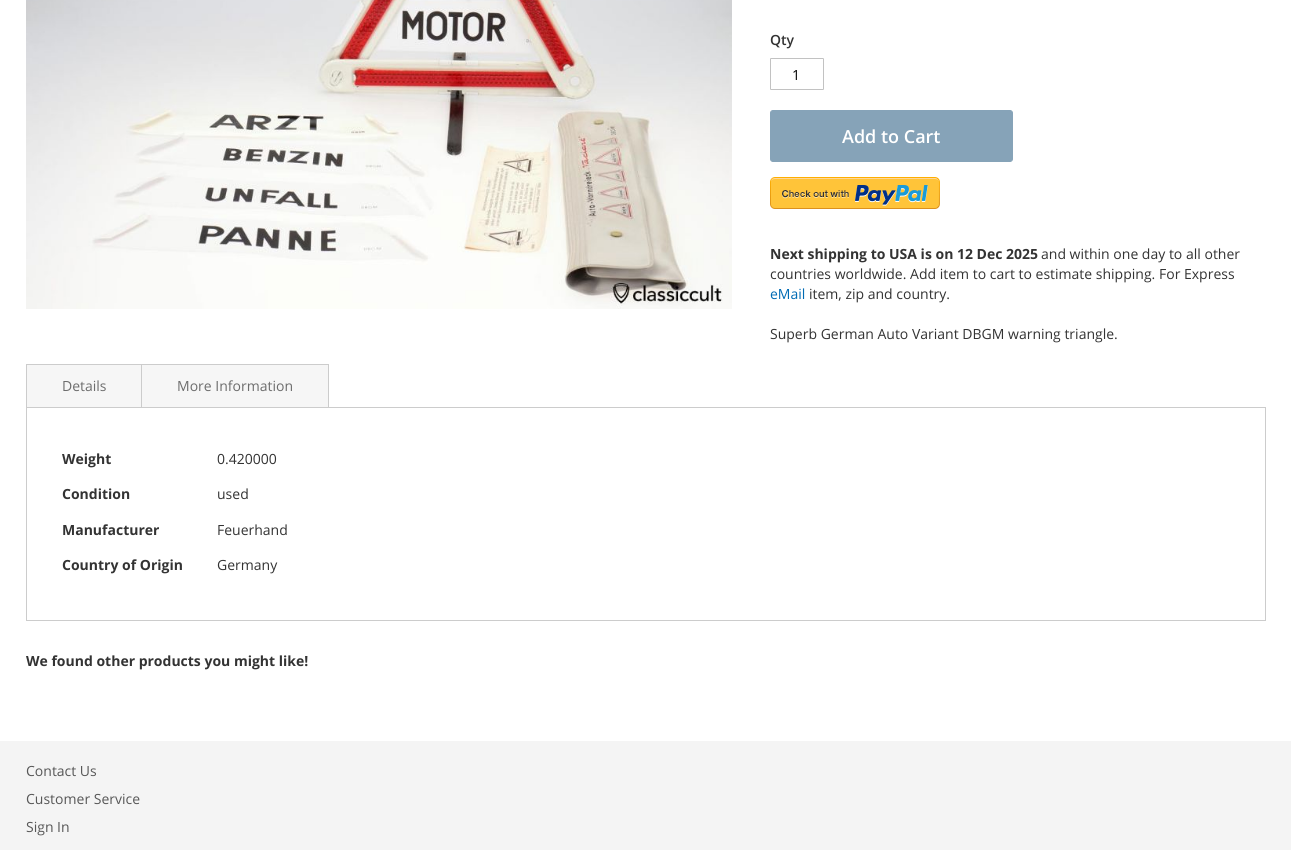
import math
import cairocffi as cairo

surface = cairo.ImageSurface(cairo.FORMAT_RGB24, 1291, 850)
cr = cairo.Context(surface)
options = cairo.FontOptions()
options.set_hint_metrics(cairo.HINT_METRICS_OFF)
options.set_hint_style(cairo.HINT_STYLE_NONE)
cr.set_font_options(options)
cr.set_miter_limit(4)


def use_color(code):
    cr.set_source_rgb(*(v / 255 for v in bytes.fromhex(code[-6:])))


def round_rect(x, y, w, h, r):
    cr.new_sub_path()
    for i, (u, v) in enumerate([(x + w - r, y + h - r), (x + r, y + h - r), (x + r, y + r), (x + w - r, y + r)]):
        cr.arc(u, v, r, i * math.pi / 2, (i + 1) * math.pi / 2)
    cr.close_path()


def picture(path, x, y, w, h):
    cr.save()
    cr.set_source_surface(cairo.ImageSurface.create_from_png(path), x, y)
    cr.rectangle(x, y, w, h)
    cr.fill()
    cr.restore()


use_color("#ffffff")
cr.paint()
picture("img1.png", 26, 0, 706, 309)
cr.select_font_face("Open Sans SemiBold")
cr.set_font_size(14)
use_color("#333333")
cr.move_to(770, 45)
cr.show_text("Qty")
round_rect(770.5, 58.5, 53, 31, 0.5)
use_color("#c2c2c2")
cr.set_line_width(1)
cr.stroke()
cr.select_font_face("Open Sans")
use_color("#000000")
cr.move_to(792, 80)
cr.show_text("1")
use_color("#86a3b8")
round_rect(770.5, 110.5, 242, 51, 2.5)
cr.fill_preserve()
cr.stroke()
cr.select_font_face("Open Sans SemiBold")
cr.set_font_size(18)
use_color("#ffffff")
cr.move_to(842, 143)
cr.show_text("Add to Cart")
picture("img2.png", 770, 177, 170, 32)
cr.select_font_face("Open Sans", cairo.FONT_SLANT_NORMAL, cairo.FONT_WEIGHT_BOLD)
cr.set_font_size(14)
use_color("#333333")
cr.move_to(770, 259)
cr.show_text("Next shipping to USA is on 12 Dec 2025")
cr.select_font_face("Open Sans")
cr.move_to(1041, 259)
cr.show_text("and within one day to all other")
cr.move_to(770, 279)
cr.show_text("countries worldwide. Add item to cart to estimate shipping. For Express")
use_color("#006bb4")
cr.move_to(770, 299)
cr.show_text("eMail")
use_color("#333333")
cr.move_to(809, 299)
cr.show_text("item, zip and country.")
cr.move_to(770, 339)
cr.show_text("Superb German Auto Variant DBGM warning triangle.")
use_color("#f6f6f6")
cr.rectangle(27, 365, 114, 42)
cr.fill()
use_color("#cccccc")
cr.rectangle(26, 364, 303, 1)
cr.fill()
cr.rectangle(26, 364, 1, 43)
cr.fill()
use_color("#6d6d6d")
cr.move_to(62, 391)
cr.show_text("Details")
use_color("#f6f6f6")
cr.rectangle(142, 365, 186, 42)
cr.fill()
use_color("#cccccc")
cr.rectangle(328, 364, 1, 43)
cr.fill()
cr.rectangle(141, 364, 1, 43)
cr.fill()
use_color("#6d6d6d")
cr.move_to(177, 391)
cr.show_text("More Information")
cr.rectangle(26.5, 407.5, 1239, 213)
use_color("#cccccc")
cr.stroke()
cr.select_font_face("Open Sans", cairo.FONT_SLANT_NORMAL, cairo.FONT_WEIGHT_BOLD)
use_color("#333333")
cr.move_to(62, 464)
cr.show_text("Weight")
cr.select_font_face("Open Sans")
cr.move_to(217, 464)
cr.show_text("0.420000")
cr.select_font_face("Open Sans", cairo.FONT_SLANT_NORMAL, cairo.FONT_WEIGHT_BOLD)
cr.move_to(62, 499)
cr.show_text("Condition")
cr.select_font_face("Open Sans")
cr.move_to(217, 499)
cr.show_text("used")
cr.select_font_face("Open Sans", cairo.FONT_SLANT_NORMAL, cairo.FONT_WEIGHT_BOLD)
cr.move_to(62, 535)
cr.show_text("Manufacturer")
cr.select_font_face("Open Sans")
cr.move_to(217, 535)
cr.show_text("Feuerhand")
cr.select_font_face("Open Sans", cairo.FONT_SLANT_NORMAL, cairo.FONT_WEIGHT_BOLD)
cr.move_to(62, 570)
cr.show_text("Country of Origin")
cr.select_font_face("Open Sans")
cr.move_to(217, 570)
cr.show_text("Germany")
cr.select_font_face("Open Sans", cairo.FONT_SLANT_NORMAL, cairo.FONT_WEIGHT_BOLD)
cr.move_to(26, 666)
cr.show_text("We found other products you might like!")
use_color("#f4f4f4")
cr.rectangle(0, 741, 1291, 109)
cr.fill()
cr.select_font_face("Open Sans")
use_color("#575757")
cr.move_to(26, 776)
cr.show_text("Contact Us")
cr.move_to(26, 804)
cr.show_text("Customer Service")
cr.move_to(26, 832)
cr.show_text("Sign In")
surface.write_to_png("result.png")
